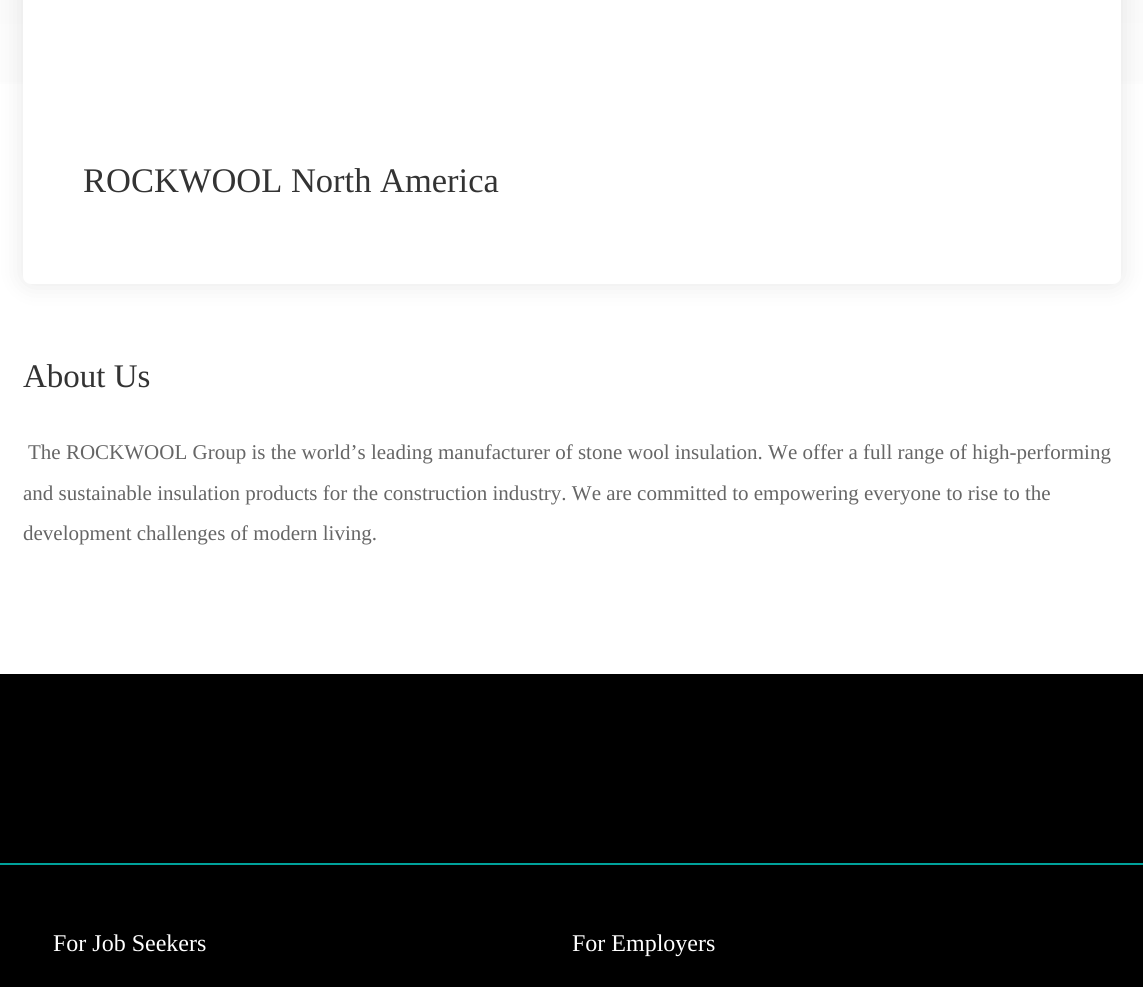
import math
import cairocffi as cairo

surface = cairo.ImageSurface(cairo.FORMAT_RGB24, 1143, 987)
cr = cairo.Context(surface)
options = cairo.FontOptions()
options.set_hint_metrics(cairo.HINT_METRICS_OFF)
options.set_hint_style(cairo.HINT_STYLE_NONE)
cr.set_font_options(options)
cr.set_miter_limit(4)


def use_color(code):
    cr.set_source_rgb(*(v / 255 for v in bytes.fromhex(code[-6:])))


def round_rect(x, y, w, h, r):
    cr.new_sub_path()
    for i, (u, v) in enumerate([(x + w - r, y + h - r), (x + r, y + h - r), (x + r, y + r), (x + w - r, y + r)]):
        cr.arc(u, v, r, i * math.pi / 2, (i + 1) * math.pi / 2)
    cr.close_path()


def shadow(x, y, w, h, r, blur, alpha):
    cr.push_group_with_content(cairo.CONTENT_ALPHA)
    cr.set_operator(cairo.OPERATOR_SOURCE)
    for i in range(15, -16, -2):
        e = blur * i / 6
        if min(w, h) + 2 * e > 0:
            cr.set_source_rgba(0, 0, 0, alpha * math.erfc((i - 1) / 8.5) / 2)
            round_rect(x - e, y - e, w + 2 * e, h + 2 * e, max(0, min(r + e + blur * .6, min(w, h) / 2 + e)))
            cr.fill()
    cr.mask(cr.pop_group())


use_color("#ffffff")
cr.paint()
gradient = cairo.LinearGradient(571, -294, 572, 606)
gradient.add_color_stop_rgba(0, 0.965, 0.965, 0.965, 1)
gradient.add_color_stop_rgba(0.58, 1, 1, 1, 1)
cr.set_source(gradient)
cr.rectangle(0, 0, 1143, 84)
cr.fill()
use_color("#000000")
shadow(23, -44, 1098, 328, 8, 12, 0.1)
use_color("#ffffff")
round_rect(23, -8, 1098, 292, 8)
cr.fill()
cr.select_font_face("Liberation Serif")
cr.set_font_size(34.5)
use_color("#333333")
cr.move_to(83, 192)
cr.show_text("ROCKWOOL North America")
cr.set_font_size(33)
cr.move_to(23, 387)
cr.show_text("About Us")
cr.set_font_size(21)
use_color("#666666")
cr.move_to(28, 459)
cr.show_text("The ROCKWOOL Group is the world’s leading manufacturer of stone wool insulation. We offer a full range of high-performing")
cr.move_to(23, 500)
cr.show_text("and sustainable insulation products for the construction industry. We are committed to empowering everyone to rise to the")
cr.move_to(23, 540)
cr.show_text("development challenges of modern living.")
use_color("#000000")
cr.rectangle(0, 674, 1143, 313)
cr.fill()
use_color("#00a19b")
cr.rectangle(0, 863, 1143, 2)
cr.fill()
cr.set_font_size(24)
use_color("#ffffff")
cr.move_to(53, 951)
cr.show_text("For Job Seekers")
cr.move_to(572, 951)
cr.show_text("For Employers")
surface.write_to_png("result.png")
